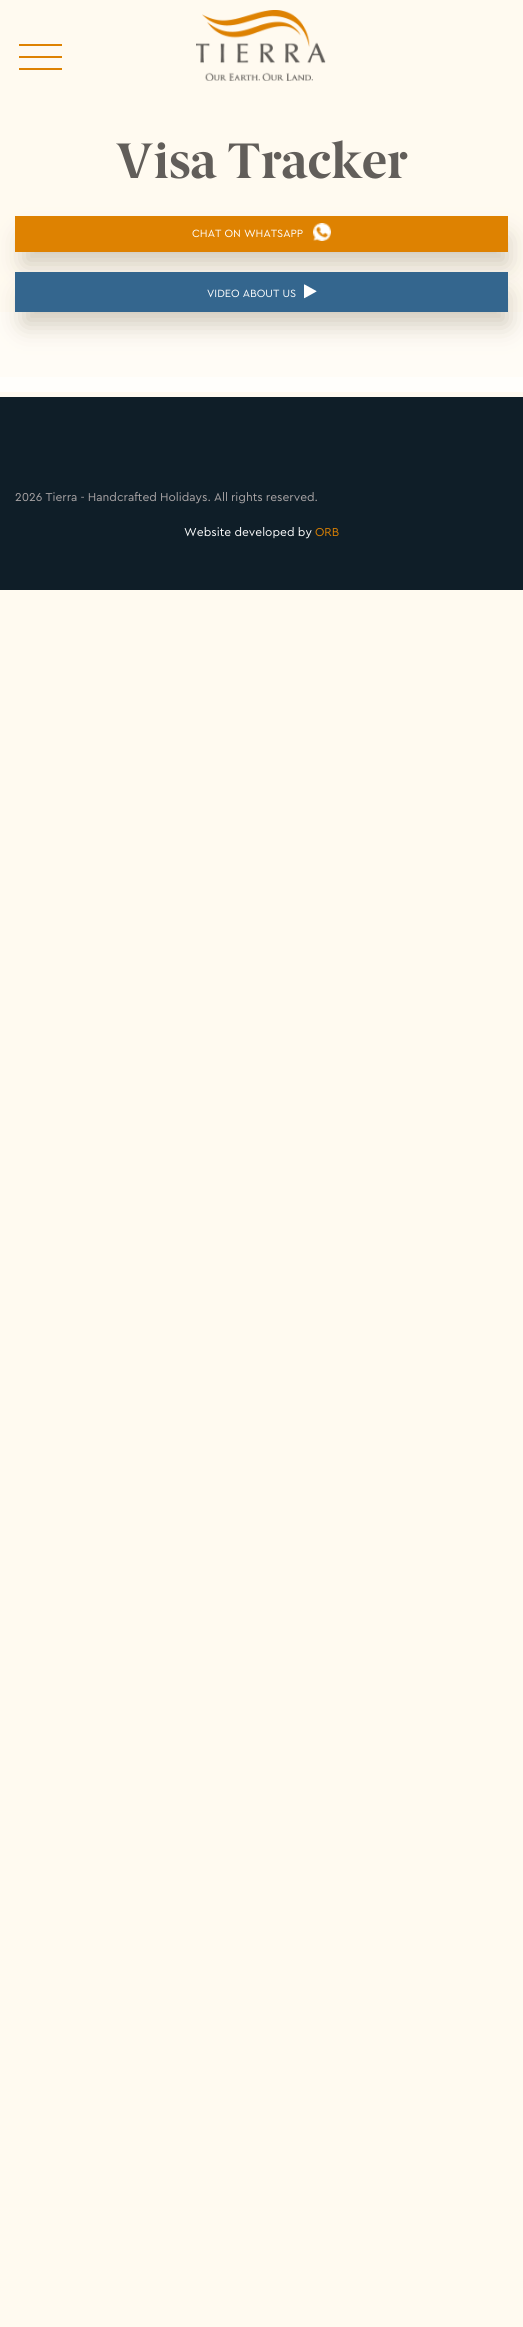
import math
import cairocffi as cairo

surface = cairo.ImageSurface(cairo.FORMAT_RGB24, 523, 2327)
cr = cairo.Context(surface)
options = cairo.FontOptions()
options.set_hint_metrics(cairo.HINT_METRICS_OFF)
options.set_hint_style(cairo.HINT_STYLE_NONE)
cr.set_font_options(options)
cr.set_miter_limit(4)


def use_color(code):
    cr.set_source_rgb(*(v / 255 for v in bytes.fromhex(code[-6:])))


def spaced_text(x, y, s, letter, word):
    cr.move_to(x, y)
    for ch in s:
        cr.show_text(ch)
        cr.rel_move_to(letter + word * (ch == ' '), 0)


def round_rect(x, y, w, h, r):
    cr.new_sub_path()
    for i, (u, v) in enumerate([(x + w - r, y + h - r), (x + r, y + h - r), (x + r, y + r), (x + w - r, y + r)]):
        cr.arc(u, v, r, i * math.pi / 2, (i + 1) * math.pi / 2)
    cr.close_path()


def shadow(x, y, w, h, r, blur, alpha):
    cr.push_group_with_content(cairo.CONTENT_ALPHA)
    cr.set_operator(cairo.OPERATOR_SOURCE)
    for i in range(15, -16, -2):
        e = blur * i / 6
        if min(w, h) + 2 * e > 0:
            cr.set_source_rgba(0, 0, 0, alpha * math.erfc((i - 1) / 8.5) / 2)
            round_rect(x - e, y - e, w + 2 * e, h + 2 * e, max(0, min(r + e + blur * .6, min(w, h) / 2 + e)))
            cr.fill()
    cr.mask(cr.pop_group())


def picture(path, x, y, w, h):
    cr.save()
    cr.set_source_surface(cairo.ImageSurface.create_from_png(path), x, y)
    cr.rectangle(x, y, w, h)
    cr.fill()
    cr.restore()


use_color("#fffaf0")
cr.paint()
use_color("#de8201")
cr.rectangle(19, 44, 43, 2)
cr.fill()
cr.rectangle(19, 56, 43, 2)
cr.fill()
cr.rectangle(19, 68, 43, 2)
cr.fill()
picture("img1.png", 196, 10, 130, 71)
cr.select_font_face("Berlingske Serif", cairo.FONT_SLANT_NORMAL, cairo.FONT_WEIGHT_BOLD)
cr.set_font_size(50)
use_color("#625e5a")
cr.move_to(116, 178)
cr.show_text("Visa Tracker")
use_color("#d0c9bb")
shadow(24, 238, 483, 26, 0, 12.5, 1)
use_color("#de8201")
cr.rectangle(15, 216, 493, 36)
cr.fill()
cr.select_font_face("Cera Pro")
cr.set_font_size(11)
use_color("#ffffff")
cr.move_to(192, 237)
cr.show_text("CHAT ON WHATSAPP")
picture("img2.png", 313, 223, 18, 18)
use_color("#fffcf6")
cr.rectangle(0, 312, 523, 65)
cr.fill()
use_color("#d0c9bb")
shadow(24, 294, 483, 30, 0, 12.5, 1)
use_color("#34668e")
cr.rectangle(15, 272, 493, 40)
cr.fill()
use_color("#ffffff")
cr.move_to(207, 297)
cr.show_text("VIDEO ABOUT US")
picture("img3.png", 304, 284, 13, 15)
use_color("#fffefb")
cr.rectangle(0, 377, 523, 15)
cr.fill()
use_color("#0f1e28")
cr.rectangle(0, 397, 523, 193)
cr.fill()
cr.set_font_size(12)
use_color("#aaa5a6")
spaced_text(15, 501, "2026 Tierra - Handcrafted Holidays. All rights reserved.", 0, -0.25)
use_color("#ffffff")
cr.move_to(184, 536)
cr.show_text("Website developed by")
use_color("#de8201")
cr.move_to(315, 536)
cr.show_text("ORB")
surface.write_to_png("result.png")
